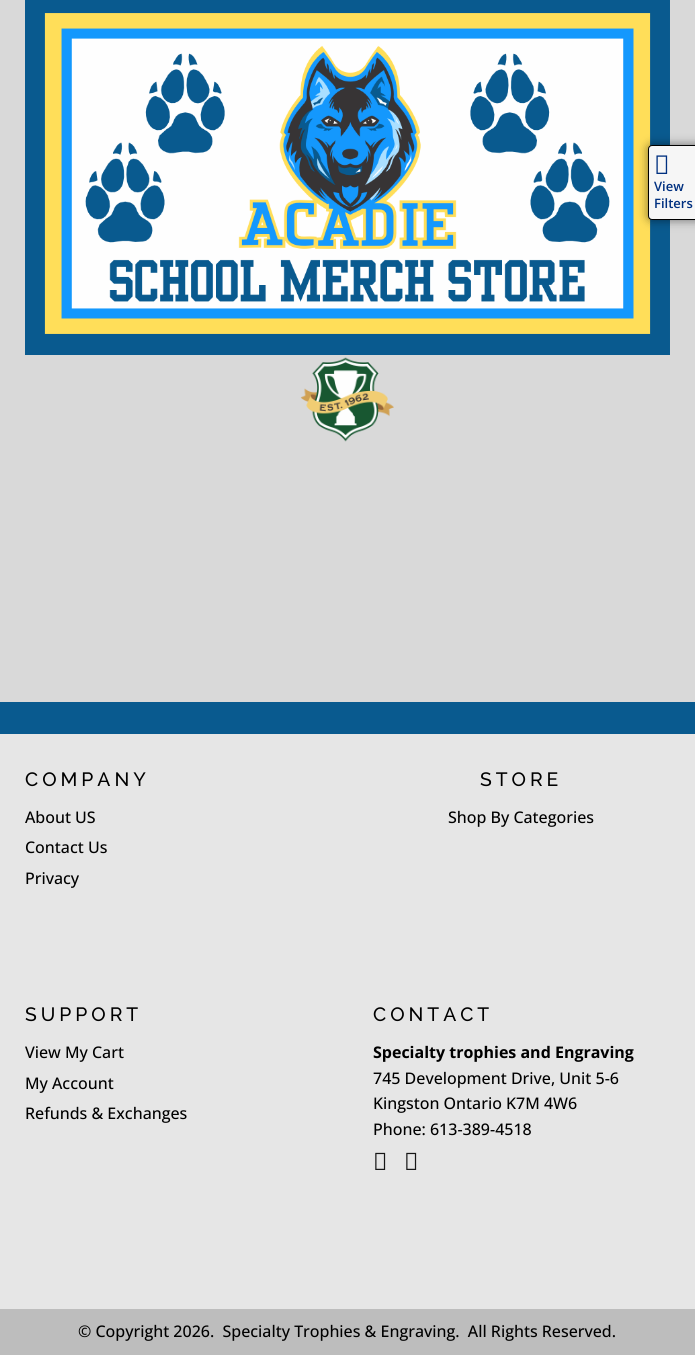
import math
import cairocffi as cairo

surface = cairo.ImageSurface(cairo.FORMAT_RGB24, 695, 1355)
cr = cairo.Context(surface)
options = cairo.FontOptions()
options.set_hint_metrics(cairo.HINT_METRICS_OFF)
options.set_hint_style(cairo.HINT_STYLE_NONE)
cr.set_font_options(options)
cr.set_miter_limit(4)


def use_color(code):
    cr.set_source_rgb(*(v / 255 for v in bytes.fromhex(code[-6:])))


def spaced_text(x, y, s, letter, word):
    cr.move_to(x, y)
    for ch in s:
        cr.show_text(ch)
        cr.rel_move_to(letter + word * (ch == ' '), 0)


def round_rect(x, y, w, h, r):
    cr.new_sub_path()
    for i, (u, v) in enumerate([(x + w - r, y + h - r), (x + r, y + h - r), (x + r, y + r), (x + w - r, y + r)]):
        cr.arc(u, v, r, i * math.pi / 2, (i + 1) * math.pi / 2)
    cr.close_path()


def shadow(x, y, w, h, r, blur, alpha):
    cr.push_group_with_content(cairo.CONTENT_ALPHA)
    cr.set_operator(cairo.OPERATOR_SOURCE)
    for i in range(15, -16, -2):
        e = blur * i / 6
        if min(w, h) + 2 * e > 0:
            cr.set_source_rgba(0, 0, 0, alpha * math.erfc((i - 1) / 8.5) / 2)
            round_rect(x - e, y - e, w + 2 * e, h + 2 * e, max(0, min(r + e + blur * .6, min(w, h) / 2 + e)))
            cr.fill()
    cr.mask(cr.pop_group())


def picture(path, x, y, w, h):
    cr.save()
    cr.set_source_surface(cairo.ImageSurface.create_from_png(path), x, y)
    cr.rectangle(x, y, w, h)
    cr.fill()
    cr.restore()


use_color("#e6e6e6")
cr.paint()
use_color("#d9d9d9")
cr.rectangle(0, 0, 695, 702)
cr.fill()
picture("img1.png", 25, 0, 645, 355)
picture("img2.png", 300, 357, 94, 85)
use_color("#000000")
shadow(648, 145, 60, 75, 4, 5, 0.5)
use_color("#f6f6f6")
round_rect(648.5, 145.5, 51, 74, 3.5)
cr.fill_preserve()
use_color("#000000")
cr.set_line_width(1)
cr.stroke()
picture("img3.png", 656, 155, 12, 19)
cr.select_font_face("Open Sans SemiBold")
cr.set_font_size(13)
use_color("#003080")
cr.move_to(654, 191)
cr.show_text("View")
cr.move_to(654, 208)
cr.show_text("Filters")
use_color("#095a8f")
cr.rectangle(0, 702, 695, 32)
cr.fill()
cr.select_font_face("Raleway Medium")
cr.set_font_size(19.25)
use_color("#000000")
spaced_text(25, 786, "COMPANY", 4, 0)
cr.select_font_face("Open Sans Medium")
cr.set_font_size(16)
cr.move_to(25, 823)
cr.show_text("About US")
cr.move_to(25, 853)
cr.show_text("Contact Us")
cr.move_to(25, 884)
cr.show_text("Privacy")
cr.select_font_face("Raleway Medium")
cr.set_font_size(19.25)
spaced_text(480, 786, "STORE", 4, 0)
cr.select_font_face("Open Sans Medium")
cr.set_font_size(16)
cr.move_to(448, 823)
cr.show_text("Shop By Categories")
cr.select_font_face("Raleway Medium")
cr.set_font_size(19.25)
spaced_text(25, 1021, "SUPPORT", 4, 0)
cr.select_font_face("Open Sans Medium")
cr.set_font_size(16)
cr.move_to(25, 1058)
cr.show_text("View My Cart")
cr.move_to(25, 1089)
cr.show_text("My Account")
cr.move_to(25, 1119)
cr.show_text("Refunds & Exchanges")
cr.select_font_face("Raleway Medium")
cr.set_font_size(19.25)
spaced_text(373, 1021, "CONTACT", 4, 0)
cr.select_font_face("Open Sans", cairo.FONT_SLANT_NORMAL, cairo.FONT_WEIGHT_BOLD)
cr.set_font_size(16)
cr.move_to(373, 1058)
cr.show_text("Specialty trophies and Engraving")
cr.select_font_face("Open Sans Medium")
cr.move_to(373, 1084)
cr.show_text("745 Development Drive, Unit 5-6")
cr.move_to(373, 1109)
cr.show_text("Kingston Ontario K7M 4W6")
cr.move_to(373, 1135)
cr.show_text("Phone: 613-389-4518")
picture("img4.png", 375, 1152, 11, 18)
picture("img4.png", 406, 1152, 11, 18)
use_color("#bdbdbd")
cr.rectangle(0, 1309, 695, 46)
cr.fill()
use_color("#000000")
cr.move_to(78, 1337)
cr.show_text("© Copyright 2026.  Specialty Trophies & Engraving.  All Rights Reserved.")
surface.write_to_png("result.png")
